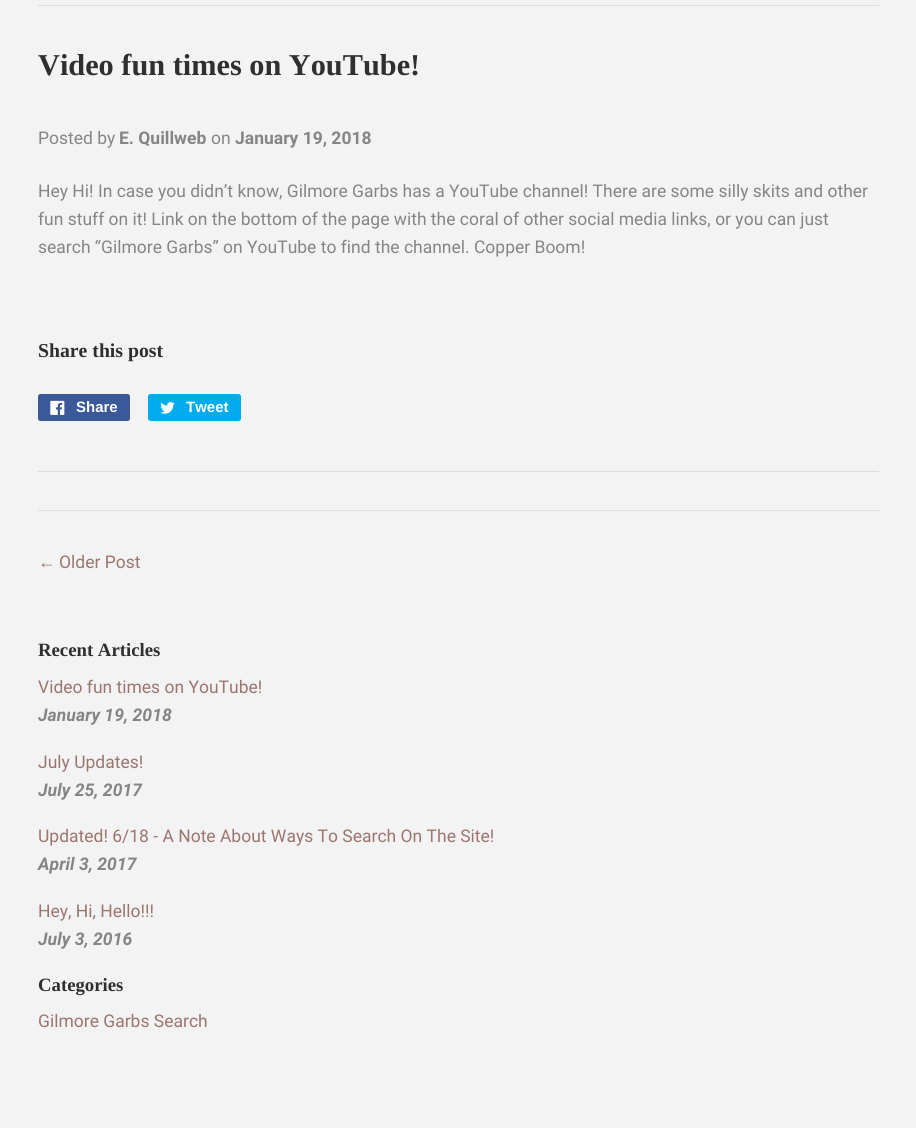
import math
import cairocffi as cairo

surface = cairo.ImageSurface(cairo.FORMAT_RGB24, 916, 1132)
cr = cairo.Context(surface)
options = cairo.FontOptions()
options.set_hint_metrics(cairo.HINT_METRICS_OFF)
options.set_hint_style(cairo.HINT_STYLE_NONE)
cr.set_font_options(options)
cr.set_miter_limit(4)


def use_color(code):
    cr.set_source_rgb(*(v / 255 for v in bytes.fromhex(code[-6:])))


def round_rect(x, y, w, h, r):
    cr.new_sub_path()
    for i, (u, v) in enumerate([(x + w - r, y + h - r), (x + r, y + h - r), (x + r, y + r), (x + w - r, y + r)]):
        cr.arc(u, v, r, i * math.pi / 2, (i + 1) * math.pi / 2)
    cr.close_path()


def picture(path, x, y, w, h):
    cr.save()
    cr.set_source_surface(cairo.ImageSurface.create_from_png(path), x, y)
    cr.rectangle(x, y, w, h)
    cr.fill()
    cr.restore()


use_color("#f3f3f3")
cr.paint()
use_color("#dedede")
cr.rectangle(38, 5, 841, 1)
cr.fill()
cr.select_font_face("Liberation Serif", cairo.FONT_SLANT_NORMAL, cairo.FONT_WEIGHT_BOLD)
cr.set_font_size(30.3)
use_color("#2f2f2f")
cr.move_to(38, 75)
cr.show_text("Video fun times on YouTube!")
cr.select_font_face("Roboto")
cr.set_font_size(17.5)
use_color("#858585")
cr.move_to(38, 144)
cr.show_text("Posted by")
cr.select_font_face("Roboto", cairo.FONT_SLANT_NORMAL, cairo.FONT_WEIGHT_BOLD)
cr.move_to(119, 144)
cr.show_text("E. Quillweb")
cr.select_font_face("Roboto")
cr.move_to(211, 144)
cr.show_text("on")
cr.select_font_face("Roboto", cairo.FONT_SLANT_NORMAL, cairo.FONT_WEIGHT_BOLD)
cr.move_to(235, 144)
cr.show_text("January 19, 2018")
cr.select_font_face("Roboto")
cr.move_to(38, 197)
cr.show_text("Hey Hi! In case you didn’t know, Gilmore Garbs has a YouTube channel! There are some silly skits and other")
cr.move_to(38, 225)
cr.show_text("fun stuff on it! Link on the bottom of the page with the coral of other social media links, or you can just")
cr.move_to(38, 253)
cr.show_text("search “Gilmore Garbs” on YouTube to find the channel. Copper Boom!")
cr.select_font_face("Liberation Serif", cairo.FONT_SLANT_NORMAL, cairo.FONT_WEIGHT_BOLD)
cr.set_font_size(19.75)
use_color("#2f2f2f")
cr.move_to(38, 357)
cr.show_text("Share this post")
use_color("#3b5998")
round_rect(38, 394, 92, 27, 2.5)
cr.fill()
picture("img1.png", 50, 400, 15, 15)
cr.select_font_face("Liberation Sans", cairo.FONT_SLANT_NORMAL, cairo.FONT_WEIGHT_BOLD)
cr.set_font_size(15)
use_color("#ffffff")
cr.move_to(76, 412)
cr.show_text("Share")
use_color("#00aced")
round_rect(148, 394, 93, 27, 2.5)
cr.fill()
picture("img2.png", 160, 402, 15, 12)
use_color("#ffffff")
cr.move_to(186, 412)
cr.show_text("Tweet")
use_color("#dedede")
cr.rectangle(38, 471, 841, 1)
cr.fill()
cr.rectangle(38, 510, 841, 1)
cr.fill()
cr.select_font_face("Liberation Sans")
cr.set_font_size(17.5)
use_color("#9c756f")
cr.move_to(38, 568)
cr.show_text("←")
cr.select_font_face("Roboto")
cr.move_to(59, 568)
cr.show_text("Older Post")
cr.select_font_face("Liberation Serif", cairo.FONT_SLANT_NORMAL, cairo.FONT_WEIGHT_BOLD)
cr.set_font_size(18.75)
use_color("#2f2f2f")
cr.move_to(38, 656)
cr.show_text("Recent Articles")
cr.select_font_face("Roboto")
cr.set_font_size(17.5)
use_color("#9c756f")
cr.move_to(38, 693)
cr.show_text("Video fun times on YouTube!")
cr.select_font_face("Roboto", cairo.FONT_SLANT_ITALIC, cairo.FONT_WEIGHT_BOLD)
use_color("#858585")
cr.move_to(38, 721)
cr.show_text("January 19, 2018")
cr.select_font_face("Roboto")
use_color("#9c756f")
cr.move_to(38, 768)
cr.show_text("July Updates!")
cr.select_font_face("Roboto", cairo.FONT_SLANT_ITALIC, cairo.FONT_WEIGHT_BOLD)
use_color("#858585")
cr.move_to(38, 796)
cr.show_text("July 25, 2017")
cr.select_font_face("Roboto")
use_color("#9c756f")
cr.move_to(38, 842)
cr.show_text("Updated! 6/18 - A Note About Ways To Search On The Site!")
cr.select_font_face("Roboto", cairo.FONT_SLANT_ITALIC, cairo.FONT_WEIGHT_BOLD)
use_color("#858585")
cr.move_to(38, 870)
cr.show_text("April 3, 2017")
cr.select_font_face("Roboto")
use_color("#9c756f")
cr.move_to(38, 917)
cr.show_text("Hey, Hi, Hello!!!")
cr.select_font_face("Roboto", cairo.FONT_SLANT_ITALIC, cairo.FONT_WEIGHT_BOLD)
use_color("#858585")
cr.move_to(38, 945)
cr.show_text("July 3, 2016")
cr.select_font_face("Liberation Serif", cairo.FONT_SLANT_NORMAL, cairo.FONT_WEIGHT_BOLD)
cr.set_font_size(18.75)
use_color("#2f2f2f")
cr.move_to(38, 991)
cr.show_text("Categories")
cr.select_font_face("Roboto")
cr.set_font_size(17.5)
use_color("#9c756f")
cr.move_to(38, 1027)
cr.show_text("Gilmore Garbs Search")
use_color("#ffffff")
cr.rectangle(0, 1128, 916, 4)
cr.fill()
surface.write_to_png("result.png")
